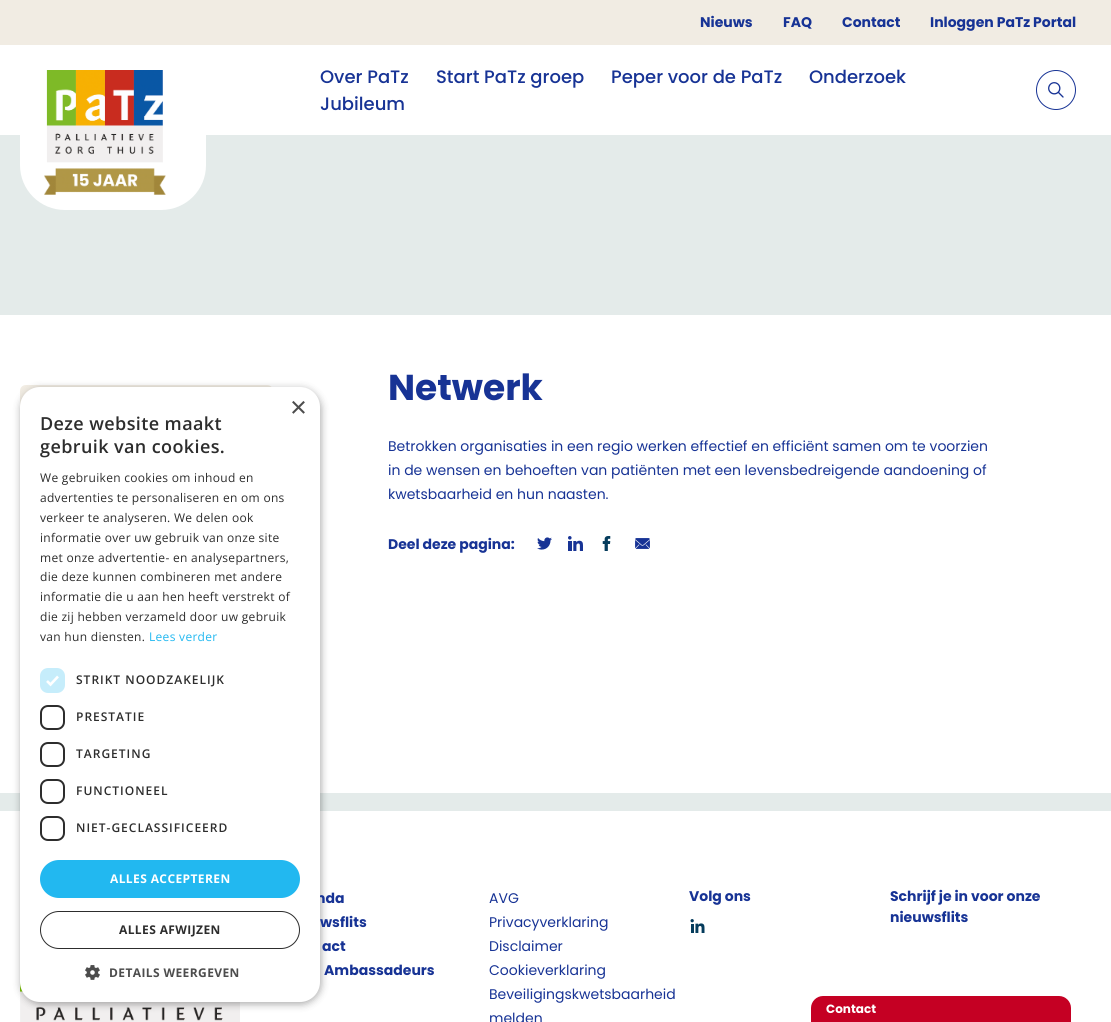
import math
import cairocffi as cairo

surface = cairo.ImageSurface(cairo.FORMAT_RGB24, 1111, 1022)
cr = cairo.Context(surface)
options = cairo.FontOptions()
options.set_hint_metrics(cairo.HINT_METRICS_OFF)
options.set_hint_style(cairo.HINT_STYLE_NONE)
cr.set_font_options(options)
cr.set_miter_limit(4)


def use_color(code):
    cr.set_source_rgb(*(v / 255 for v in bytes.fromhex(code[-6:])))


def spaced_text(x, y, s, letter, word):
    cr.move_to(x, y)
    for ch in s:
        cr.show_text(ch)
        cr.rel_move_to(letter + word * (ch == ' '), 0)


def round_rect(x, y, w, h, r):
    cr.new_sub_path()
    for i, (u, v) in enumerate([(x + w - r, y + h - r), (x + r, y + h - r), (x + r, y + r), (x + w - r, y + r)]):
        cr.arc(u, v, r, i * math.pi / 2, (i + 1) * math.pi / 2)
    cr.close_path()


def shadow(x, y, w, h, r, blur, alpha):
    cr.push_group_with_content(cairo.CONTENT_ALPHA)
    cr.set_operator(cairo.OPERATOR_SOURCE)
    for i in range(15, -16, -2):
        e = blur * i / 6
        if min(w, h) + 2 * e > 0:
            cr.set_source_rgba(0, 0, 0, alpha * math.erfc((i - 1) / 8.5) / 2)
            round_rect(x - e, y - e, w + 2 * e, h + 2 * e, max(0, min(r + e + blur * .6, min(w, h) / 2 + e)))
            cr.fill()
    cr.mask(cr.pop_group())


def picture(path, x, y, w, h):
    cr.save()
    cr.set_source_surface(cairo.ImageSurface.create_from_png(path), x, y)
    cr.rectangle(x, y, w, h)
    cr.fill()
    cr.restore()


use_color("#f1ece3")
cr.paint()
use_color("#ffffff")
cr.rectangle(0, 315, 1111, 478)
cr.fill()
use_color("#f1ece3")
cr.new_path()
cr.move_to(26, 385)
cr.line_to(267, 385)
cr.curve_to(270.5, 385, 273, 387.5, 273, 391)
cr.line_to(273, 447)
cr.line_to(20, 447)
cr.line_to(20, 391)
cr.curve_to(20, 387.5, 22.5, 385, 26, 385)
cr.close_path()
cr.fill()
use_color("#ffffff")
cr.rectangle(0, 811, 1111, 211)
cr.fill()
use_color("#e4ebea")
cr.rectangle(0, 793, 1111, 18)
cr.fill()
picture("img8.png", 20, 982, 220, 40)
use_color("#000000")
shadow(21, 389, 300, 615, 20, 4, 0.35)
cr.select_font_face("Poppins", cairo.FONT_SLANT_NORMAL, cairo.FONT_WEIGHT_BOLD)
cr.set_font_size(14)
use_color("#173395")
cr.move_to(316, 903)
cr.show_text("nda")
use_color("#ffffff")
round_rect(20, 387, 300, 615, 20)
cr.fill()
cr.select_font_face("Liberation Sans")
cr.set_font_size(29)
use_color("#4d4d4d")
cr.move_to(290, 417)
cr.show_text("×")
cr.select_font_face("Open Sans SemiBold")
cr.set_font_size(18)
use_color("#2d2d2d")
spaced_text(40, 430, "Deze website maakt", 0.4, 0)
spaced_text(40, 453, "gebruik van cookies.", 0.4, 0)
cr.select_font_face("Open Sans")
cr.set_font_size(12)
spaced_text(40, 482, "We gebruiken cookies om inhoud en", 0.3, 0)
spaced_text(40, 502, "advertenties te personaliseren en om ons", 0.3, 0)
spaced_text(40, 522, "verkeer te analyseren. We delen ook", 0.3, 0)
spaced_text(40, 542, "informatie over uw gebruik van onze site", 0.3, 0)
spaced_text(40, 562, "met onze advertentie- en analysepartners,", 0.3, 0)
spaced_text(40, 581, "die deze kunnen combineren met andere", 0.3, 0)
spaced_text(40, 601, "informatie die u aan hen heeft verstrekt of", 0.3, 0)
spaced_text(40, 621, "die zij hebben verzameld door uw gebruik", 0.3, 0)
spaced_text(40, 641, "van hun diensten.", 0.3, 0)
use_color("#22b8f0")
spaced_text(149, 641, "Lees verder", 0.3, 0)
use_color("#c6edfb")
round_rect(40, 668, 25, 25, 8)
cr.fill()
cr.new_path()
cr.move_to(47, 681)
cr.line_to(50.5, 684.5)
cr.line_to(58, 676.5)
use_color("#ffffff")
cr.set_line_width(2.6)
cr.stroke()
cr.select_font_face("Open Sans SemiBold")
use_color("#2d2d2d")
spaced_text(76, 684, "STRIKT NOODZAKELIJK", 1, 0)
round_rect(41, 706, 23, 23, 7)
cr.set_line_width(2)
cr.stroke()
spaced_text(76, 721, "PRESTATIE", 1, 0)
round_rect(41, 743, 23, 23, 7)
cr.stroke()
spaced_text(76, 758, "TARGETING", 1, 0)
round_rect(41, 780, 23, 23, 7)
cr.stroke()
spaced_text(76, 795, "FUNCTIONEEL", 1, 0)
round_rect(41, 817, 23, 23, 7)
cr.stroke()
spaced_text(76, 832, "NIET-GECLASSIFICEERD", 1, 0)
use_color("#22b8f0")
round_rect(40, 860, 260, 38, 19)
cr.fill()
cr.select_font_face("Open Sans", cairo.FONT_SLANT_NORMAL, cairo.FONT_WEIGHT_BOLD)
use_color("#ffffff")
spaced_text(110, 883, "ALLES ACCEPTEREN", 0.4, 0)
round_rect(40.5, 911.5, 259, 37, 18.5)
use_color("#2d2d2d")
cr.set_line_width(1)
cr.stroke()
spaced_text(119, 934, "ALLES AFWIJZEN", 0.4, 0)
picture("img1.png", 85, 965, 15, 15)
use_color("#4d4d4d")
spaced_text(109, 977, "DETAILS WEERGEVEN", 0.4, 0)
cr.select_font_face("Poppins", cairo.FONT_SLANT_NORMAL, cairo.FONT_WEIGHT_BOLD)
cr.set_font_size(14)
use_color("#173395")
cr.move_to(700, 27)
cr.show_text("Nieuws")
cr.move_to(783, 27)
cr.show_text("FAQ")
cr.move_to(842, 27)
cr.show_text("Contact")
cr.move_to(930, 27)
cr.show_text("Inloggen PaTz Portal")
use_color("#ffffff")
cr.rectangle(0, 45, 1111, 90)
cr.fill()
use_color("#e4ebea")
cr.rectangle(0, 135, 1111, 180)
cr.fill()
use_color("#ffffff")
cr.new_path()
cr.move_to(20, 45)
cr.line_to(206, 45)
cr.line_to(206, 165)
cr.curve_to(206, 190, 186, 210, 161, 210)
cr.line_to(65, 210)
cr.curve_to(40, 210, 20, 190, 20, 165)
cr.close_path()
cr.fill()
picture("img2.png", 44, 70, 122, 125)
cr.select_font_face("Poppins Medium")
cr.set_font_size(18)
use_color("#173395")
cr.move_to(320, 83)
cr.show_text("Over PaTz")
cr.move_to(436, 83)
cr.show_text("Start PaTz groep")
cr.move_to(611, 83)
cr.show_text("Peper voor de PaTz")
cr.move_to(809, 83)
cr.show_text("Onderzoek")
cr.move_to(320, 110)
cr.show_text("Jubileum")
cr.new_path()
cr.arc(1056, 90, 19.5, 0, 2 * math.pi)
cr.stroke()
picture("img3.png", 1048, 82, 16, 16)
cr.select_font_face("Poppins", cairo.FONT_SLANT_NORMAL, cairo.FONT_WEIGHT_BOLD)
cr.set_font_size(36)
cr.move_to(388, 400)
cr.show_text("Netwerk")
cr.select_font_face("Poppins")
cr.set_font_size(14)
cr.move_to(388, 451)
cr.show_text("Betrokken organisaties in een regio werken effectief en efficiënt samen om te voorzien")
cr.move_to(388, 475)
cr.show_text("in de wensen en behoeften van patiënten met een levensbedreigende aandoening of")
cr.move_to(388, 499)
cr.show_text("kwetsbaarheid en hun naasten.")
cr.select_font_face("Poppins", cairo.FONT_SLANT_NORMAL, cairo.FONT_WEIGHT_BOLD)
cr.move_to(388, 549)
cr.show_text("Deel deze pagina:")
picture("img4.png", 537, 537, 15, 13)
picture("img5.png", 568, 536, 15, 15)
picture("img6.png", 602, 536, 9, 15)
picture("img7.png", 635, 538, 15, 11)
cr.move_to(320, 927)
cr.show_text("wsflits")
cr.move_to(322, 951)
cr.show_text("act")
cr.move_to(324, 975)
cr.show_text("Ambassadeurs")
cr.select_font_face("Poppins")
cr.move_to(489, 903)
cr.show_text("AVG")
cr.move_to(489, 927)
cr.show_text("Privacyverklaring")
cr.move_to(489, 951)
cr.show_text("Disclaimer")
cr.move_to(489, 975)
cr.show_text("Cookieverklaring")
cr.move_to(489, 999)
cr.show_text("Beveiligingskwetsbaarheid")
cr.move_to(489, 1023)
cr.show_text("melden")
cr.select_font_face("Poppins", cairo.FONT_SLANT_NORMAL, cairo.FONT_WEIGHT_BOLD)
cr.move_to(689, 901)
cr.show_text("Volg ons")
picture("img9.png", 690, 919, 15, 14)
cr.move_to(890, 901)
cr.show_text("Schrijf je in voor onze")
cr.move_to(890, 922)
cr.show_text("nieuwsflits")
use_color("#c50023")
cr.new_path()
cr.move_to(823, 996)
cr.line_to(1059, 996)
cr.curve_to(1065.5, 996, 1071, 1001.5, 1071, 1008)
cr.line_to(1071, 1022)
cr.line_to(811, 1022)
cr.line_to(811, 1008)
cr.curve_to(811, 1001.5, 816.5, 996, 823, 996)
cr.close_path()
cr.fill()
cr.set_font_size(12)
use_color("#ffffff")
cr.move_to(826, 1013)
cr.show_text("Contact")
surface.write_to_png("result.png")
